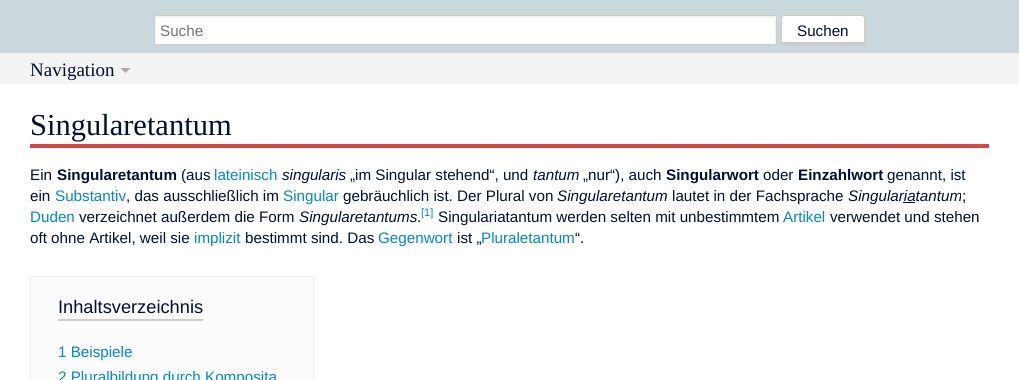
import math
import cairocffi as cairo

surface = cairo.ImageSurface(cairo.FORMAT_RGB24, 1019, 380)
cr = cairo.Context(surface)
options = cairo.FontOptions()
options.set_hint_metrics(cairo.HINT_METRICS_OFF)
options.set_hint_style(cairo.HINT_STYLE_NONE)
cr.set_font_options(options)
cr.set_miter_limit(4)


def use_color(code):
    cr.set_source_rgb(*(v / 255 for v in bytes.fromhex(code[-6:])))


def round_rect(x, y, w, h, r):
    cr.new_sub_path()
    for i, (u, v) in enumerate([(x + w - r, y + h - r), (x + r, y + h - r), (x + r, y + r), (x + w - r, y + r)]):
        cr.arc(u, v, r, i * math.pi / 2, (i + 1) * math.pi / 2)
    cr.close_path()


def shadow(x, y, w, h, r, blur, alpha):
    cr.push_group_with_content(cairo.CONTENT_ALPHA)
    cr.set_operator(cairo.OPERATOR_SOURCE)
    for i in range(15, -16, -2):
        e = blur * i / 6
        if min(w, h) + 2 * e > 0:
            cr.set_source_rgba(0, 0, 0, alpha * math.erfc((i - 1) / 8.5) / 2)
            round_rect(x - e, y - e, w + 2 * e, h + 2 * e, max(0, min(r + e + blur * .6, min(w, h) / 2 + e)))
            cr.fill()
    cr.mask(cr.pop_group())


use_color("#f3f3f3")
cr.paint()
use_color("#cad7dd")
cr.rectangle(0, 0, 1019, 53)
cr.fill()
use_color("#ffffff")
cr.rectangle(156, 18, 619, 26)
cr.fill()
cr.save()
cr.rectangle(155, 16, 621, 28)
cr.clip()
use_color("#f2f2f2")
cr.set_fill_rule(cairo.FILL_RULE_EVEN_ODD)
cr.new_path()
cr.move_to(56, -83)
cr.line_to(875, -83)
cr.line_to(875, 143)
cr.line_to(56, 143)
cr.close_path()
cr.move_to(156, 18)
cr.line_to(775, 18)
cr.line_to(775, 44)
cr.line_to(156, 44)
cr.close_path()
cr.fill()
cr.restore()
cr.rectangle(154.5, 15.5, 622, 29)
use_color("#cccccc")
cr.set_line_width(1)
cr.stroke()
cr.select_font_face("Liberation Sans")
cr.set_font_size(15.2)
use_color("#757575")
cr.move_to(160, 36)
cr.show_text("Suche")
use_color("#000000")
shadow(781, 16, 84, 30, 3, 1, 0.05)
use_color("#ffffff")
cr.new_path()
cr.move_to(784, 16)
cr.line_to(862, 16)
cr.curve_to(863, 16, 864, 17, 864, 18)
cr.line_to(864, 42)
cr.line_to(862, 42)
cr.line_to(782, 42)
cr.line_to(782, 18)
cr.curve_to(782, 17, 783, 16, 784, 16)
cr.close_path()
cr.fill()
round_rect(781.5, 15.5, 83, 29, 2.5)
use_color("#cccccc")
cr.stroke()
cr.rectangle(783, 42, 80, 2)
cr.fill()
use_color("#001133")
cr.move_to(797, 36)
cr.show_text("Suchen")
cr.select_font_face("Liberation Serif")
cr.set_font_size(19)
cr.move_to(30, 76)
cr.show_text("Navigation")
use_color("#aaaaaa")
cr.new_path()
cr.move_to(130.5, 68)
cr.line_to(125.5, 73)
cr.line_to(120.5, 68)
cr.close_path()
cr.fill()
use_color("#ffffff")
cr.rectangle(0, 84, 1019, 296)
cr.fill()
use_color("#dd4444")
cr.rectangle(30, 144, 959, 4)
cr.fill()
cr.set_font_size(30.5)
use_color("#001133")
cr.move_to(30, 135)
cr.show_text("Singularetantum")
cr.select_font_face("Liberation Sans")
cr.set_font_size(15.2)
cr.move_to(30, 180)
cr.show_text("Ein")
cr.select_font_face("Liberation Sans", cairo.FONT_SLANT_NORMAL, cairo.FONT_WEIGHT_BOLD)
cr.move_to(57, 180)
cr.show_text("Singularetantum")
cr.select_font_face("Liberation Sans")
cr.move_to(181, 180)
cr.show_text("(aus")
use_color("#0088dd")
cr.move_to(214, 180)
cr.show_text("lateinisch")
cr.select_font_face("Liberation Sans", cairo.FONT_SLANT_ITALIC)
use_color("#001133")
cr.move_to(282, 180)
cr.show_text("singularis")
cr.select_font_face("Liberation Sans")
cr.move_to(350, 180)
cr.show_text("„im Singular stehend“, und")
cr.select_font_face("Liberation Sans", cairo.FONT_SLANT_ITALIC)
cr.move_to(533, 180)
cr.show_text("tantum")
cr.select_font_face("Liberation Sans")
cr.move_to(583, 180)
cr.show_text("„nur“), auch")
cr.select_font_face("Liberation Sans", cairo.FONT_SLANT_NORMAL, cairo.FONT_WEIGHT_BOLD)
cr.move_to(666, 180)
cr.show_text("Singularwort")
cr.select_font_face("Liberation Sans")
cr.move_to(763, 180)
cr.show_text("oder")
cr.select_font_face("Liberation Sans", cairo.FONT_SLANT_NORMAL, cairo.FONT_WEIGHT_BOLD)
cr.move_to(798, 180)
cr.show_text("Einzahlwort")
cr.select_font_face("Liberation Sans")
cr.move_to(887, 180)
cr.show_text("genannt, ist")
cr.move_to(30, 201)
cr.show_text("ein")
use_color("#0088dd")
cr.move_to(55, 201)
cr.show_text("Substantiv")
use_color("#001133")
cr.move_to(126, 201)
cr.show_text(", das ausschließlich im")
use_color("#0088dd")
cr.move_to(283, 201)
cr.show_text("Singular")
use_color("#001133")
cr.move_to(343, 201)
cr.show_text("gebräuchlich ist. Der Plural von")
cr.select_font_face("Liberation Sans", cairo.FONT_SLANT_ITALIC)
cr.move_to(557, 201)
cr.show_text("Singularetantum")
cr.select_font_face("Liberation Sans")
cr.move_to(672, 201)
cr.show_text("lautet in der Fachsprache")
cr.select_font_face("Liberation Sans", cairo.FONT_SLANT_ITALIC)
cr.move_to(848, 201)
cr.show_text("Singulariatantum")
cr.rectangle(903, 202, 12, 1)
cr.fill()
cr.select_font_face("Liberation Sans")
cr.move_to(962, 201)
cr.show_text(";")
use_color("#0088dd")
cr.move_to(30, 222)
cr.show_text("Duden")
use_color("#001133")
cr.move_to(79, 222)
cr.show_text("verzeichnet außerdem die Form")
cr.select_font_face("Liberation Sans", cairo.FONT_SLANT_ITALIC)
cr.move_to(299, 222)
cr.show_text("Singularetantums")
cr.select_font_face("Liberation Sans")
cr.move_to(417, 222)
cr.show_text(".")
cr.set_font_size(11)
use_color("#0088dd")
cr.move_to(421, 216)
cr.show_text("[1]")
cr.set_font_size(15.2)
use_color("#001133")
cr.move_to(438, 222)
cr.show_text("Singulariatantum werden selten mit unbestimmtem")
use_color("#0088dd")
cr.move_to(783, 222)
cr.show_text("Artikel")
use_color("#001133")
cr.move_to(830, 222)
cr.show_text("verwendet und stehen")
cr.move_to(30, 243)
cr.show_text("oft ohne Artikel, weil sie")
use_color("#0088dd")
cr.move_to(194, 243)
cr.show_text("implizit")
use_color("#001133")
cr.move_to(245, 243)
cr.show_text("bestimmt sind. Das")
use_color("#0088dd")
cr.move_to(378, 243)
cr.show_text("Gegenwort")
use_color("#001133")
cr.move_to(457, 243)
cr.show_text("ist „")
use_color("#0088dd")
cr.move_to(481, 243)
cr.show_text("Pluraletantum")
use_color("#001133")
cr.move_to(575, 243)
cr.show_text("“.")
use_color("#fcfcfc")
cr.rectangle(31, 277, 282, 103)
cr.fill()
use_color("#eeeeee")
cr.rectangle(30, 276, 284, 1)
cr.fill()
cr.rectangle(313, 276, 1, 104)
cr.fill()
cr.rectangle(30, 276, 1, 104)
cr.fill()
use_color("#cccccc")
cr.rectangle(58, 319, 145, 2)
cr.fill()
cr.set_font_size(18.25)
use_color("#001133")
cr.move_to(58, 313)
cr.show_text("Inhaltsverzeichnis")
cr.set_font_size(15.2)
use_color("#0088dd")
cr.move_to(58, 357)
cr.show_text("1 Beispiele")
cr.move_to(58, 382)
cr.show_text("2 Pluralbildung durch Komposita")
surface.write_to_png("result.png")
